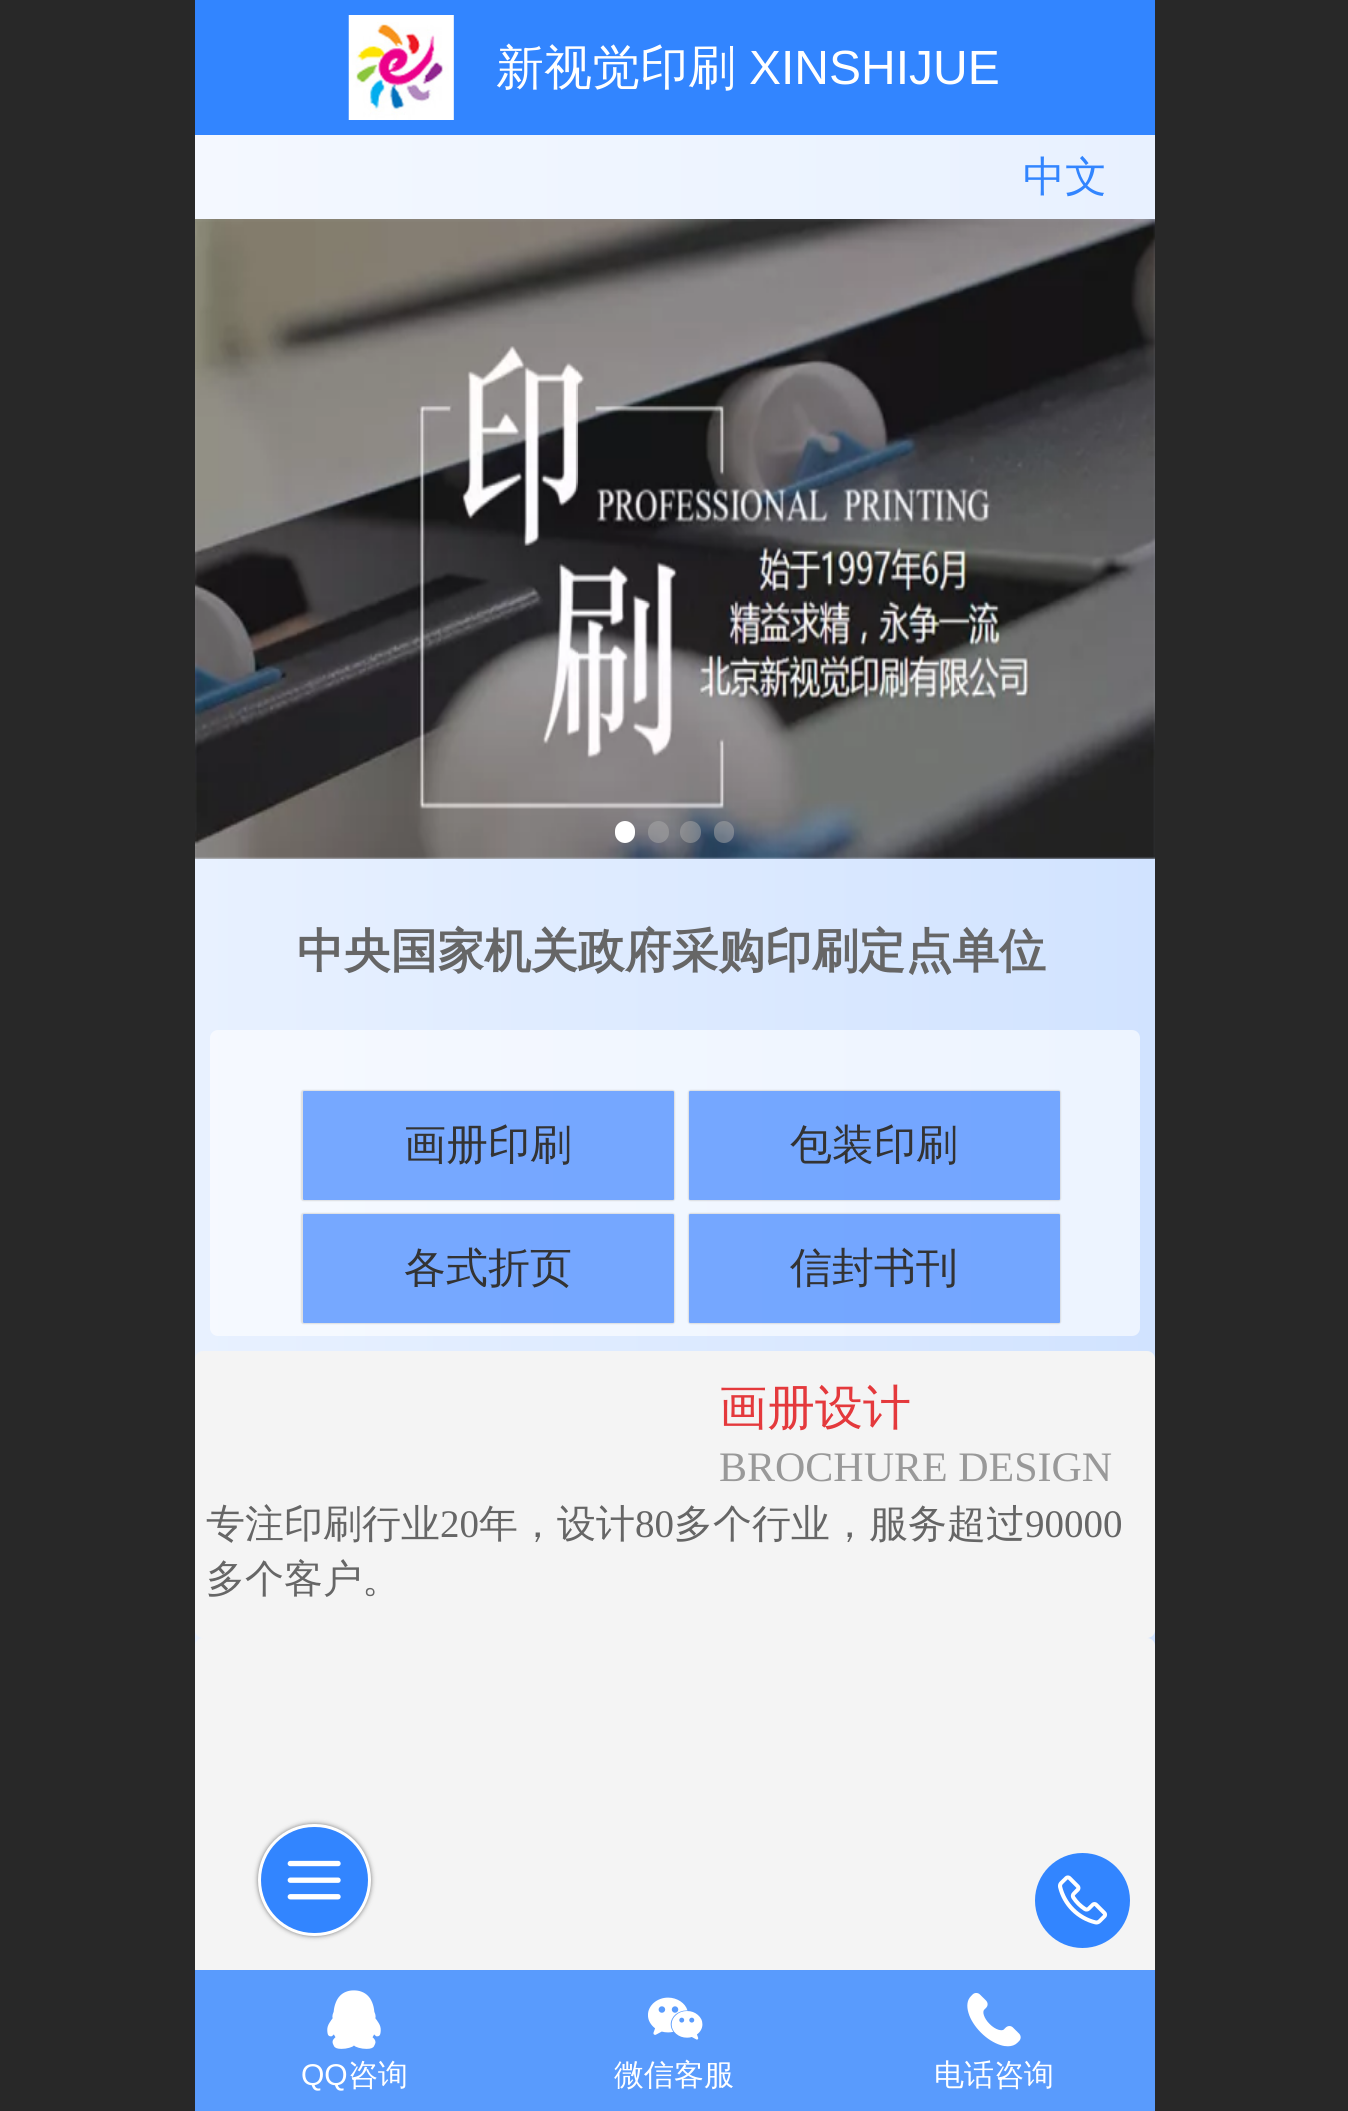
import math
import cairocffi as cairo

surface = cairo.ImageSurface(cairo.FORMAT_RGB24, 1348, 2111)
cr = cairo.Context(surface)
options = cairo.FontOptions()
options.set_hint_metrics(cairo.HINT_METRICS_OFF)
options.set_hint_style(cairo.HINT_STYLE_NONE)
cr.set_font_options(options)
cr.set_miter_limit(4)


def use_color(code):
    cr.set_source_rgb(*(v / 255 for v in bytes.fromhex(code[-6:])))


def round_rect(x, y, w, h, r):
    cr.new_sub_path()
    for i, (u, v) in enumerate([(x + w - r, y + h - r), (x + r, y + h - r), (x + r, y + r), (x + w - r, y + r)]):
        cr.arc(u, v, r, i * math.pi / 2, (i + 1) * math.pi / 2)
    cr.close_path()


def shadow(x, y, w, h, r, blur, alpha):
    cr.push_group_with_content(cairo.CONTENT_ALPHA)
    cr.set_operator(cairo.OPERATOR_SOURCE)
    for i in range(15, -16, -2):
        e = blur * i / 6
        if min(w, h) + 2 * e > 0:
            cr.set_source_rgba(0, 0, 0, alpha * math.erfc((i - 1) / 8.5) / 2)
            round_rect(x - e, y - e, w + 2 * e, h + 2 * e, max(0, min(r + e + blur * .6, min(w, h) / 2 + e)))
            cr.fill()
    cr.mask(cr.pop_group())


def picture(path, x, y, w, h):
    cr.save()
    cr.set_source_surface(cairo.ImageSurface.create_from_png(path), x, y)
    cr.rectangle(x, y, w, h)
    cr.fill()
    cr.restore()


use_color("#ffffff")
cr.paint()
use_color("#282828")
cr.rectangle(0, 0, 195, 2111)
cr.fill()
use_color("#3285ff")
cr.rectangle(195, 0, 960, 135)
cr.fill()
picture("img1.png", 348, 15, 106, 105)
cr.select_font_face("WenQuanYi Zen Hei Medium")
cr.set_font_size(48)
use_color("#ffffff")
cr.move_to(496, 84)
cr.show_text("新视觉印刷")
cr.select_font_face("Liberation Sans")
cr.move_to(749, 84)
cr.show_text("XINSHIJUE")
gradient = cairo.LinearGradient(195, 0, 1155, 0)
gradient.add_color_stop_rgba(0, 0.957, 0.973, 1, 1)
gradient.add_color_stop_rgba(1, 0.91, 0.945, 1, 1)
cr.set_source(gradient)
cr.rectangle(195, 135, 960, 84)
cr.fill()
cr.select_font_face("WenQuanYi Zen Hei Medium")
cr.set_font_size(42)
use_color("#3285ff")
cr.move_to(1023, 191)
cr.show_text("中文")
gradient = cairo.LinearGradient(195, 0, 1155, 0)
gradient.add_color_stop_rgba(0, 0.91, 0.945, 1, 1)
gradient.add_color_stop_rgba(1, 0.82, 0.89, 1, 1)
cr.set_source(gradient)
cr.rectangle(195, 219, 960, 1427)
cr.fill()
use_color("#f4f4f4")
cr.new_path()
cr.move_to(203, 1638)
cr.line_to(1147, 1638)
cr.curve_to(1151.5, 1638, 1155, 1641.5, 1155, 1646)
cr.line_to(1155, 2111)
cr.line_to(195, 2111)
cr.line_to(195, 1646)
cr.curve_to(195, 1641.5, 198.5, 1638, 203, 1638)
cr.close_path()
cr.fill()
use_color("#000000")
shadow(258, 1824, 113, 112, 56, 2.5, 0.5)
use_color("#3285ff")
round_rect(259.5, 1825.5, 110, 109, 54.5)
cr.fill_preserve()
use_color("#ffffff")
cr.set_line_width(3)
cr.stroke()
picture("img2.png", 287, 1860, 54, 40)
picture("img3.png", 195, 219, 960, 640)
round_rect(615, 821, 20, 22, 10)
cr.fill()
cr.set_source_rgba(0.671, 0.671, 0.671, 0.5)
round_rect(648, 821, 21, 22, 10.5)
cr.fill()
round_rect(680, 821, 21, 22, 10.5)
cr.fill()
round_rect(714, 821, 20, 22, 10)
cr.fill()
cr.select_font_face("WenQuanYi Zen Hei", cairo.FONT_SLANT_NORMAL, cairo.FONT_WEIGHT_BOLD)
cr.set_font_size(46.8)
use_color("#666666")
cr.move_to(297, 967)
cr.show_text("中央国家机关政府采购印刷定点单位")
cr.set_source_rgba(1, 1, 1, 0.6)
round_rect(210, 1030, 930, 306, 8)
cr.fill()
cr.save()
cr.set_fill_rule(cairo.FILL_RULE_EVEN_ODD)
cr.new_path()
cr.move_to(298, 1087)
cr.line_to(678, 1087)
cr.line_to(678, 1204)
cr.line_to(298, 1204)
cr.close_path()
cr.move_to(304, 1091)
cr.line_to(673, 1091)
cr.curve_to(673.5, 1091, 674, 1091.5, 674, 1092)
cr.line_to(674, 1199)
cr.curve_to(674, 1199.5, 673.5, 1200, 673, 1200)
cr.line_to(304, 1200)
cr.curve_to(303.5, 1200, 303, 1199.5, 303, 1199)
cr.line_to(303, 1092)
cr.curve_to(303, 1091.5, 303.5, 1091, 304, 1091)
cr.close_path()
cr.clip()
use_color("#cacaca")
shadow(301, 1090, 374, 111, 2.5, 0.5, 0.55)
cr.restore()
cr.set_source_rgba(0.059, 0.404, 1, 0.55)
round_rect(303, 1091, 371, 109, 1)
cr.fill()
cr.select_font_face("WenQuanYi Zen Hei Medium")
cr.set_font_size(42)
use_color("#333333")
cr.move_to(404, 1159)
cr.show_text("画册印刷")
cr.save()
cr.set_fill_rule(cairo.FILL_RULE_EVEN_ODD)
cr.new_path()
cr.move_to(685, 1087)
cr.line_to(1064, 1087)
cr.line_to(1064, 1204)
cr.line_to(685, 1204)
cr.close_path()
cr.move_to(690, 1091)
cr.line_to(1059, 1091)
cr.curve_to(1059.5, 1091, 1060, 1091.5, 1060, 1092)
cr.line_to(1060, 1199)
cr.curve_to(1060, 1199.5, 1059.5, 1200, 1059, 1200)
cr.line_to(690, 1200)
cr.curve_to(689.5, 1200, 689, 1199.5, 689, 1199)
cr.line_to(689, 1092)
cr.curve_to(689, 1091.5, 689.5, 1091, 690, 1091)
cr.close_path()
cr.clip()
use_color("#cacaca")
shadow(688, 1090, 373, 111, 2.5, 0.5, 0.55)
cr.restore()
cr.set_source_rgba(0.059, 0.404, 1, 0.55)
round_rect(689, 1091, 371, 109, 1)
cr.fill()
use_color("#333333")
cr.move_to(790, 1159)
cr.show_text("包装印刷")
cr.save()
cr.set_fill_rule(cairo.FILL_RULE_EVEN_ODD)
cr.new_path()
cr.move_to(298, 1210)
cr.line_to(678, 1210)
cr.line_to(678, 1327)
cr.line_to(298, 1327)
cr.close_path()
cr.move_to(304, 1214)
cr.line_to(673, 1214)
cr.curve_to(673.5, 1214, 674, 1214.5, 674, 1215)
cr.line_to(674, 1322)
cr.curve_to(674, 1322.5, 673.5, 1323, 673, 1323)
cr.line_to(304, 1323)
cr.curve_to(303.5, 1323, 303, 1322.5, 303, 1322)
cr.line_to(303, 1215)
cr.curve_to(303, 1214.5, 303.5, 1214, 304, 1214)
cr.close_path()
cr.clip()
use_color("#cacaca")
shadow(301, 1213, 374, 111, 2.5, 0.5, 0.55)
cr.restore()
cr.set_source_rgba(0.059, 0.404, 1, 0.55)
round_rect(303, 1214, 371, 109, 1)
cr.fill()
use_color("#333333")
cr.move_to(404, 1282)
cr.show_text("各式折页")
cr.save()
cr.set_fill_rule(cairo.FILL_RULE_EVEN_ODD)
cr.new_path()
cr.move_to(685, 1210)
cr.line_to(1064, 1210)
cr.line_to(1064, 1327)
cr.line_to(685, 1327)
cr.close_path()
cr.move_to(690, 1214)
cr.line_to(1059, 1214)
cr.curve_to(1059.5, 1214, 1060, 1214.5, 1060, 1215)
cr.line_to(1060, 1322)
cr.curve_to(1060, 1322.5, 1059.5, 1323, 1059, 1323)
cr.line_to(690, 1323)
cr.curve_to(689.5, 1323, 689, 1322.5, 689, 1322)
cr.line_to(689, 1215)
cr.curve_to(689, 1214.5, 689.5, 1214, 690, 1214)
cr.close_path()
cr.clip()
use_color("#cacaca")
shadow(688, 1213, 373, 111, 2.5, 0.5, 0.55)
cr.restore()
cr.set_source_rgba(0.059, 0.404, 1, 0.55)
round_rect(689, 1214, 371, 109, 1)
cr.fill()
use_color("#333333")
cr.move_to(790, 1282)
cr.show_text("信封书刊")
use_color("#f4f4f4")
round_rect(195, 1351, 960, 287, 8)
cr.fill()
cr.set_font_size(48)
use_color("#e4393c")
cr.move_to(719, 1424)
cr.show_text("画册设计")
cr.select_font_face("Liberation Serif")
cr.set_font_size(42)
use_color("#999999")
cr.move_to(719, 1481)
cr.show_text("BROCHURE DESIGN")
cr.select_font_face("WenQuanYi Zen Hei Medium")
cr.set_font_size(39)
use_color("#666666")
cr.move_to(206, 1537)
cr.show_text("专注印刷行业")
cr.select_font_face("Liberation Serif")
cr.move_to(440, 1537)
cr.show_text("20")
cr.select_font_face("WenQuanYi Zen Hei Medium")
cr.move_to(479, 1537)
cr.show_text("年，设计")
cr.select_font_face("Liberation Serif")
cr.move_to(635, 1537)
cr.show_text("80")
cr.select_font_face("WenQuanYi Zen Hei Medium")
cr.move_to(674, 1537)
cr.show_text("多个行业，服务超过")
cr.select_font_face("Liberation Serif")
cr.move_to(1025, 1537)
cr.show_text("90000")
cr.select_font_face("WenQuanYi Zen Hei Medium")
cr.move_to(206, 1592)
cr.show_text("多个客户。")
use_color("#3285ff")
cr.new_path()
cr.arc(1082.5, 1900.5, 47.5, 0, 2 * math.pi)
cr.fill()
picture("img4.png", 1058, 1875, 50, 50)
use_color("#599bfd")
cr.rectangle(195, 1970, 960, 141)
cr.fill()
picture("img5.png", 327, 1990, 54, 59)
cr.select_font_face("Liberation Sans")
cr.set_font_size(30)
use_color("#ffffff")
cr.move_to(301, 2085)
cr.show_text("QQ")
cr.select_font_face("WenQuanYi Zen Hei Medium")
cr.move_to(348, 2085)
cr.show_text("咨询")
picture("img6.png", 648, 1997, 55, 43)
cr.move_to(614, 2085)
cr.show_text("微信客服")
picture("img7.png", 967, 1993, 54, 54)
cr.move_to(934, 2085)
cr.show_text("电话咨询")
use_color("#282828")
cr.rectangle(1155, 0, 193, 2111)
cr.fill()
surface.write_to_png("result.png")
